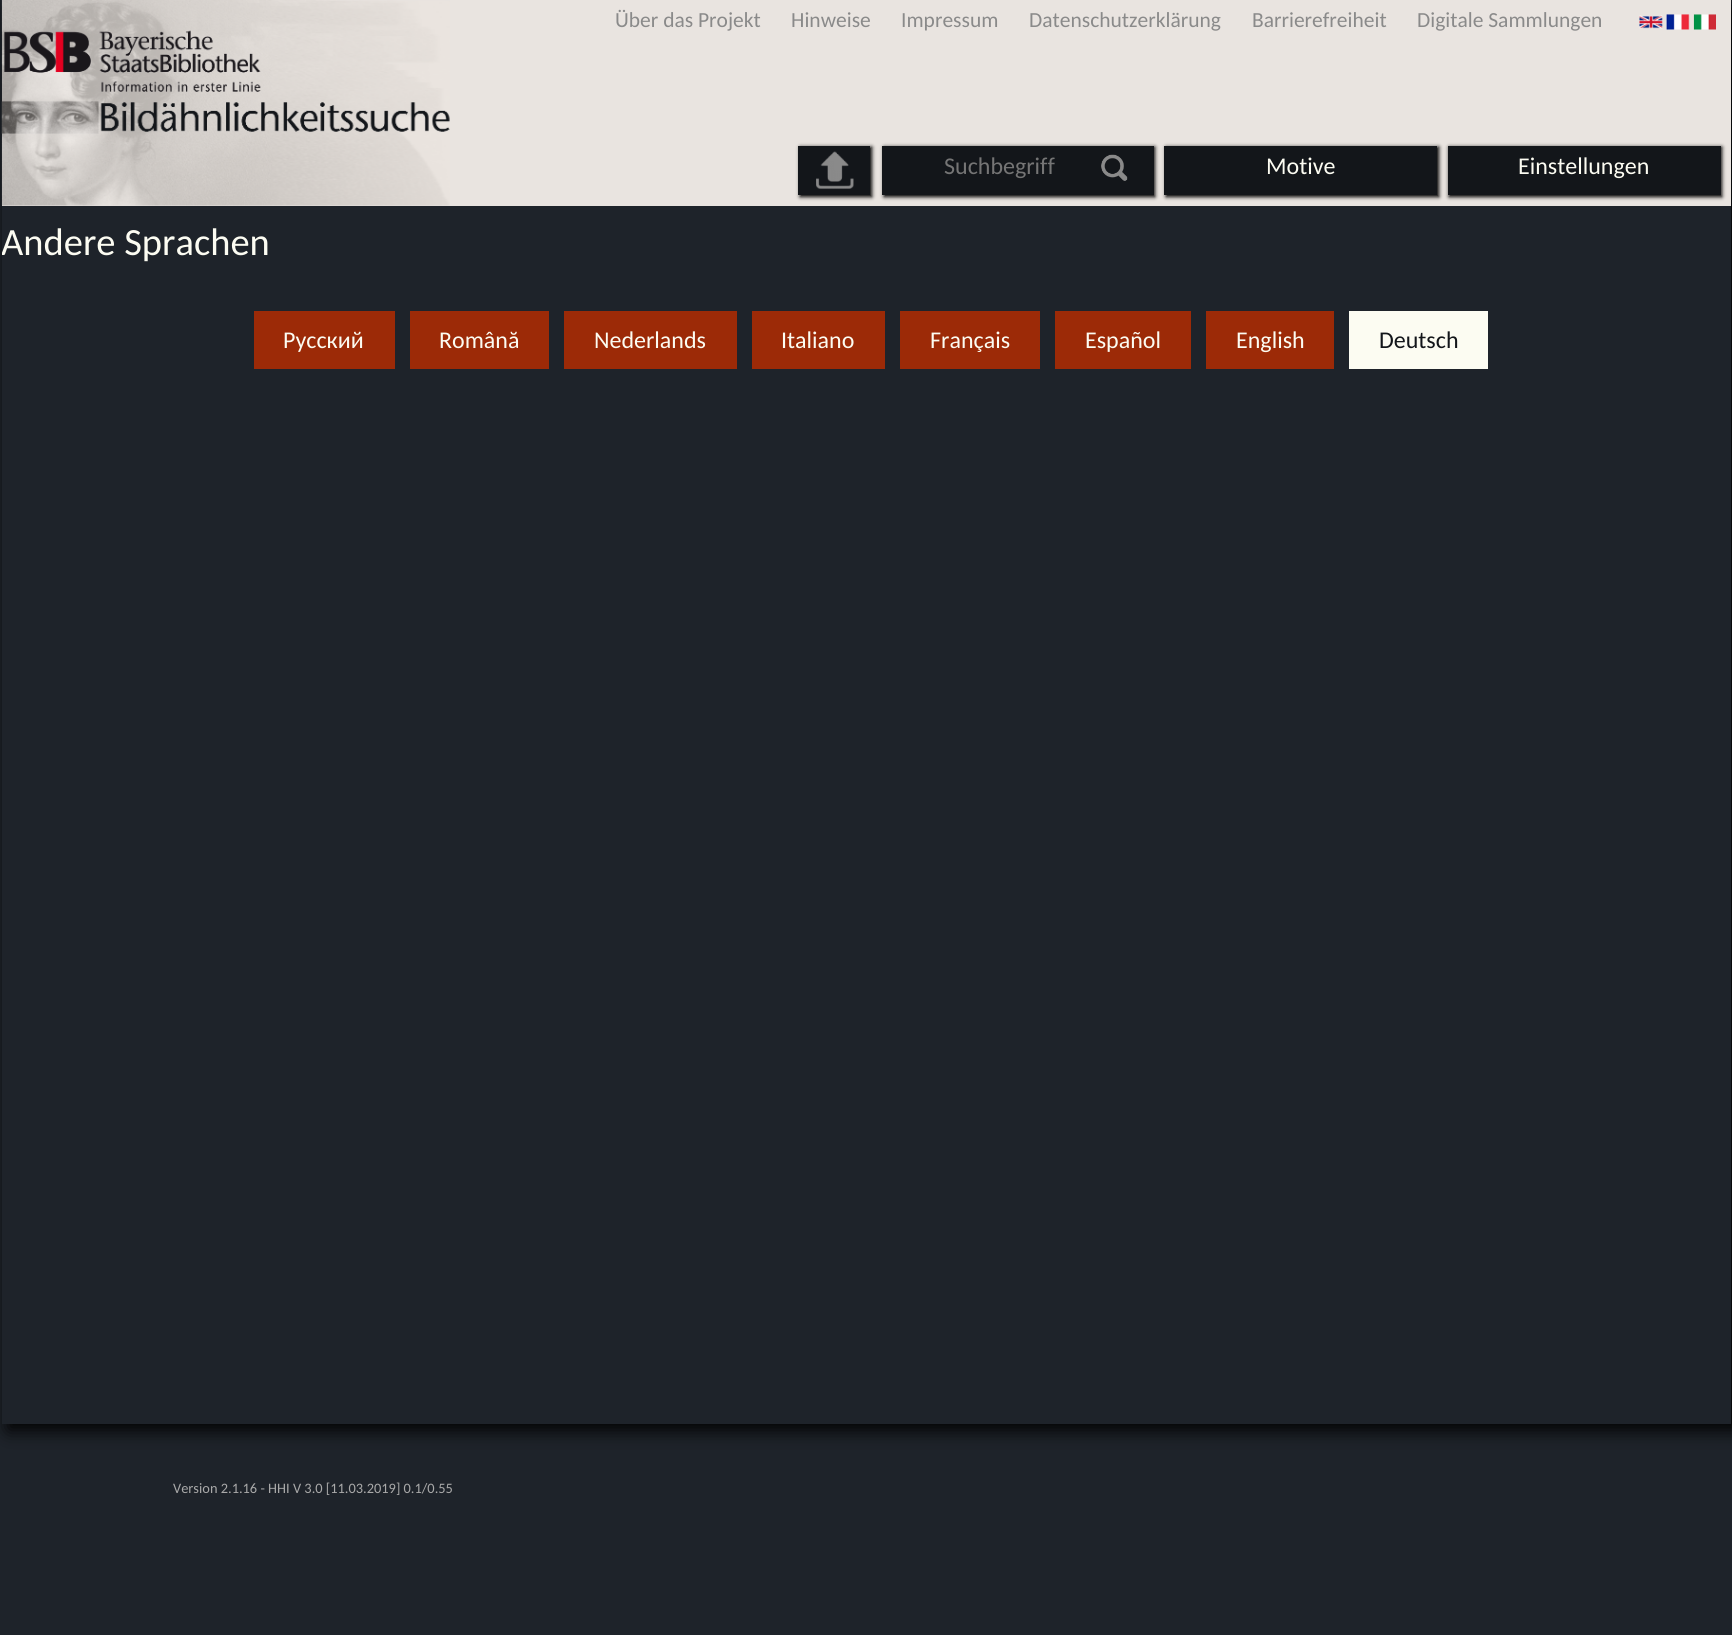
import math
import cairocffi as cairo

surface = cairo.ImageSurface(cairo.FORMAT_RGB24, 1732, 1635)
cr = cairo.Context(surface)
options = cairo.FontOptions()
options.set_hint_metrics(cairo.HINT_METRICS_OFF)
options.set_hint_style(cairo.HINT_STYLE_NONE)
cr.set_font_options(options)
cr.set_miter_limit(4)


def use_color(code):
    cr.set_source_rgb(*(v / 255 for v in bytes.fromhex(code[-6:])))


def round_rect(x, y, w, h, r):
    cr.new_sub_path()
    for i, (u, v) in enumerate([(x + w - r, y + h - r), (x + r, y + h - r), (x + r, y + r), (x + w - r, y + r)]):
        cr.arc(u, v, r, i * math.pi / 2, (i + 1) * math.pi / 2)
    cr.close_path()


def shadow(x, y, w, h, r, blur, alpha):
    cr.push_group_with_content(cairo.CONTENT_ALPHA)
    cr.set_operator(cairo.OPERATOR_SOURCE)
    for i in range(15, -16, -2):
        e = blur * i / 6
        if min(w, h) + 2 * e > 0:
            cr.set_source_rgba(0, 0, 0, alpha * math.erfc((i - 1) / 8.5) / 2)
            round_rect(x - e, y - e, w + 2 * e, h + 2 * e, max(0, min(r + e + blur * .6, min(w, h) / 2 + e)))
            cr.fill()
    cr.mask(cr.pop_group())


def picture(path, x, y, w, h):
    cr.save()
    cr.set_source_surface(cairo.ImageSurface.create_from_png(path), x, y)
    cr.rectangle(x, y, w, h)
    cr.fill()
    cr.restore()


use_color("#1e232a")
cr.paint()
use_color("#000000")
shadow(8, 6, 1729, 1424, 0, 9, 1)
use_color("#1e232a")
cr.rectangle(2, 206, 1729, 1218)
cr.fill()
use_color("#e9e4e0")
cr.rectangle(2, 0, 1729, 206)
cr.fill()
picture("img1.png", 1, 0, 449, 206)
cr.select_font_face("Carlito")
cr.set_font_size(21.5)
use_color("#8a8a8a")
cr.move_to(615, 27)
cr.show_text("Über das Projekt")
cr.move_to(791, 27)
cr.show_text("Hinweise")
cr.move_to(901, 27)
cr.show_text("Impressum")
cr.move_to(1029, 27)
cr.show_text("Datenschutzerklärung")
cr.move_to(1252, 27)
cr.show_text("Barrierefreiheit")
cr.move_to(1417, 27)
cr.show_text("Digitale Sammlungen")
picture("img2.png", 1639, 14, 77, 16)
use_color("#000000")
shadow(800, 147, 72, 50, 0, 2, 1)
use_color("#13161a")
cr.rectangle(798, 146, 72, 49)
cr.fill()
picture("img3.png", 816, 151, 38, 38)
use_color("#000000")
shadow(884, 147, 271, 50, 0, 2, 1)
use_color("#13161a")
cr.rectangle(882, 146, 272, 49)
cr.fill()
cr.set_font_size(24)
use_color("#757575")
cr.move_to(944, 174)
cr.show_text("Suchbegriff")
picture("img4.png", 1101, 154, 27, 27)
use_color("#000000")
shadow(1166, 147, 273, 50, 0, 2, 1)
use_color("#13161a")
cr.rectangle(1164, 146, 273, 49)
cr.fill()
use_color("#fcfcf2")
cr.move_to(1266, 174)
cr.show_text("Motive")
use_color("#000000")
shadow(1449, 147, 273, 50, 0, 2, 1)
use_color("#13161a")
cr.rectangle(1448, 146, 273, 49)
cr.fill()
use_color("#fcfcf2")
cr.move_to(1518, 174)
cr.show_text("Einstellungen")
cr.save()
cr.rectangle(2, 0, 1729, 1424)
cr.clip()
cr.set_font_size(38.5)
cr.move_to(1, 255)
cr.show_text("Andere Sprachen")
cr.restore()
use_color("#9c2a07")
cr.rectangle(254, 311, 141, 58)
cr.fill()
use_color("#fcfcf2")
cr.move_to(283, 348)
cr.show_text("Русский")
use_color("#9c2a07")
cr.rectangle(410, 311, 139, 58)
cr.fill()
use_color("#fcfcf2")
cr.move_to(439, 348)
cr.show_text("Română")
use_color("#9c2a07")
cr.rectangle(564, 311, 173, 58)
cr.fill()
use_color("#fcfcf2")
cr.move_to(594, 348)
cr.show_text("Nederlands")
use_color("#9c2a07")
cr.rectangle(752, 311, 133, 58)
cr.fill()
use_color("#fcfcf2")
cr.move_to(781, 348)
cr.show_text("Italiano")
use_color("#9c2a07")
cr.rectangle(900, 311, 140, 58)
cr.fill()
use_color("#fcfcf2")
cr.move_to(930, 348)
cr.show_text("Français")
use_color("#9c2a07")
cr.rectangle(1055, 311, 136, 58)
cr.fill()
use_color("#fcfcf2")
cr.move_to(1085, 348)
cr.show_text("Español")
use_color("#9c2a07")
cr.rectangle(1206, 311, 128, 58)
cr.fill()
use_color("#fcfcf2")
cr.move_to(1236, 348)
cr.show_text("English")
cr.rectangle(1349, 311, 139, 58)
cr.fill()
use_color("#13161a")
cr.move_to(1379, 348)
cr.show_text("Deutsch")
cr.set_font_size(14.4)
use_color("#a9a9a9")
cr.move_to(173, 1493)
cr.show_text("Version 2.1.16 - HHI V 3.0 [11.03.2019] 0.1/0.55")
surface.write_to_png("result.png")
